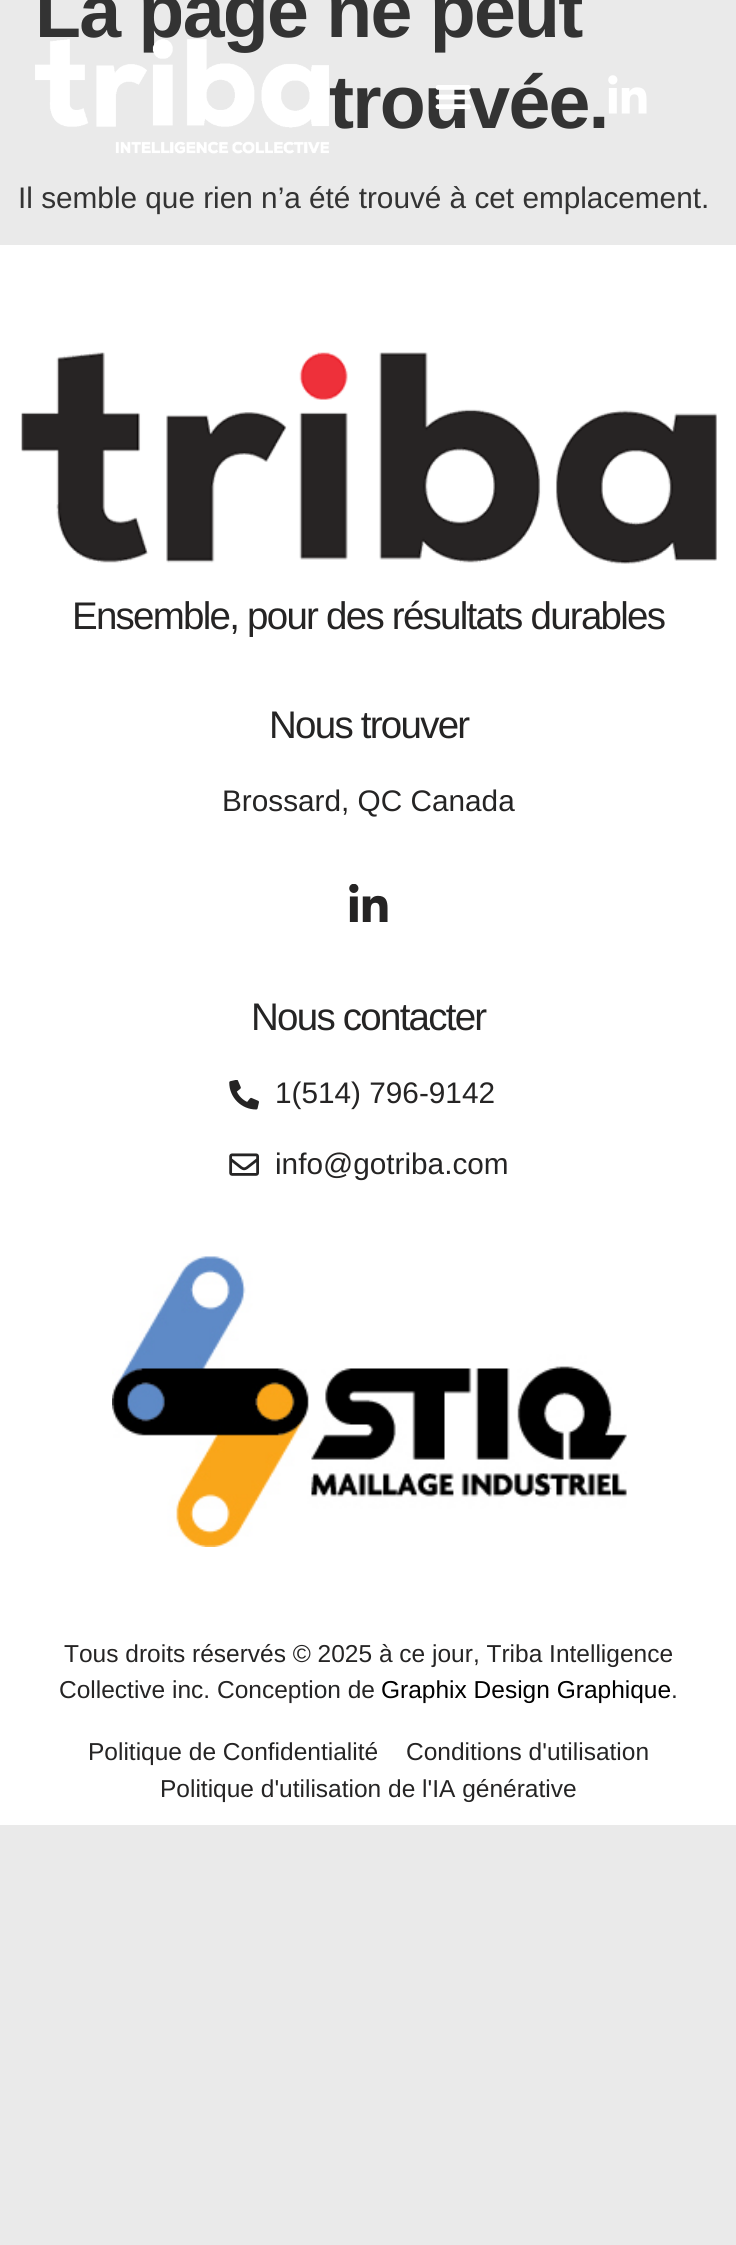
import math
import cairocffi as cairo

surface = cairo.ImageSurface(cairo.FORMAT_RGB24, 736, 2245)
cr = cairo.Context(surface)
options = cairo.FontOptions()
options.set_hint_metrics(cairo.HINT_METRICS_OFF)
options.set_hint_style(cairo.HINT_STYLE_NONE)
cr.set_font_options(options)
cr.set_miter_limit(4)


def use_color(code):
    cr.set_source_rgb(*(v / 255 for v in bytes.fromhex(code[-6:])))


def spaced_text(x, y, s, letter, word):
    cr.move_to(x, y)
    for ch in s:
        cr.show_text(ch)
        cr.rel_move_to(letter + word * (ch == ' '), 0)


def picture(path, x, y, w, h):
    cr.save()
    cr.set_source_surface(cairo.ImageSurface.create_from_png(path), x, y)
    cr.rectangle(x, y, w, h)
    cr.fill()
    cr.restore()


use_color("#eaeaea")
cr.paint()
cr.select_font_face("Liberation Sans", cairo.FONT_SLANT_NORMAL, cairo.FONT_WEIGHT_BOLD)
cr.set_font_size(75.25)
use_color("#333333")
spaced_text(35, 37, "La page ne peut", -1.75, 0)
spaced_text(329, 128, "trouvée.", -1.75, 0)
cr.select_font_face("Liberation Sans")
cr.set_font_size(29.75)
cr.move_to(18, 208)
cr.show_text("Il semble que rien n’a été trouvé à cet emplacement.")
picture("img1.png", 35, 39, 294, 115)
picture("img2.png", 435, 85, 36, 25)
picture("img3.png", 608, 75, 39, 39)
use_color("#ffffff")
cr.rectangle(0, 245, 736, 1580)
cr.fill()
picture("img4.png", 21, 352, 696, 212)
cr.set_font_size(38.5)
use_color("#252424")
spaced_text(72, 629, "Ensemble, pour des résultats durables", -1.75, 0)
spaced_text(269, 738, "Nous trouver", -1.75, 0)
cr.set_font_size(29.75)
cr.move_to(222, 811)
cr.show_text("Brossard, QC Canada")
picture("img5.png", 349, 884, 39, 38)
cr.set_font_size(38.5)
spaced_text(251, 1030, "Nous contacter", -1.75, 0)
picture("img6.png", 229, 1080, 30, 30)
cr.set_font_size(29.75)
cr.move_to(275, 1103)
cr.show_text("1(514) 796-9142")
picture("img7.png", 229, 1153, 30, 23)
cr.move_to(275, 1174)
cr.show_text("info@gotriba.com")
picture("img8.png", 112, 1256, 515, 291)
cr.set_font_size(24.5)
cr.move_to(64, 1662)
cr.show_text("Tous droits réservés © 2025 à ce jour, Triba Intelligence")
cr.move_to(59, 1698)
cr.show_text("Collective inc. Conception de")
use_color("#000000")
cr.move_to(381, 1698)
cr.show_text("Graphix Design Graphique")
use_color("#252424")
cr.move_to(671, 1698)
cr.show_text(".")
cr.move_to(88, 1760)
cr.show_text("Politique de Confidentialité")
cr.move_to(406, 1760)
cr.show_text("Conditions d'utilisation")
cr.move_to(160, 1797)
cr.show_text("Politique d'utilisation de l'IA générative")
surface.write_to_png("result.png")
